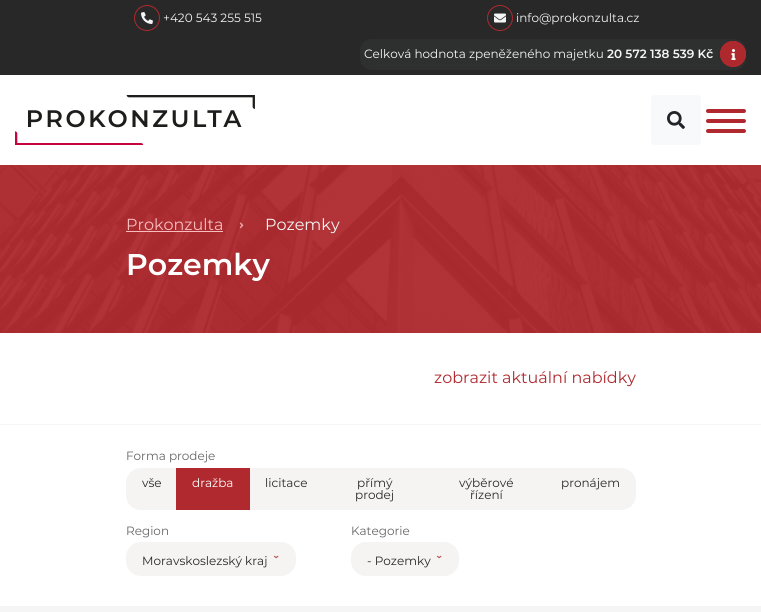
import math
import cairocffi as cairo

surface = cairo.ImageSurface(cairo.FORMAT_RGB24, 761, 612)
cr = cairo.Context(surface)
options = cairo.FontOptions()
options.set_hint_metrics(cairo.HINT_METRICS_OFF)
options.set_hint_style(cairo.HINT_STYLE_NONE)
cr.set_font_options(options)
cr.set_miter_limit(4)


def use_color(code):
    cr.set_source_rgb(*(v / 255 for v in bytes.fromhex(code[-6:])))


def round_rect(x, y, w, h, r):
    cr.new_sub_path()
    for i, (u, v) in enumerate([(x + w - r, y + h - r), (x + r, y + h - r), (x + r, y + r), (x + w - r, y + r)]):
        cr.arc(u, v, r, i * math.pi / 2, (i + 1) * math.pi / 2)
    cr.close_path()


def picture(path, x, y, w, h):
    cr.save()
    cr.set_source_surface(cairo.ImageSurface.create_from_png(path), x, y)
    cr.rectangle(x, y, w, h)
    cr.fill()
    cr.restore()


use_color("#f5f5f5")
cr.paint()
use_color("#282828")
cr.rectangle(0, 0, 761, 75)
cr.fill()
cr.arc(147, 18, 12.5, 0, 2 * math.pi)
use_color("#af292e")
cr.set_line_width(1)
cr.stroke()
picture("img1.png", 141, 12, 12, 12)
cr.select_font_face("Montserrat")
cr.set_font_size(12)
use_color("#f5f5f5")
cr.move_to(163, 22)
cr.show_text("+420 543 255 515")
cr.new_path()
cr.arc(500, 18, 12.5, 0, 2 * math.pi)
use_color("#af292e")
cr.stroke()
picture("img2.png", 494, 13, 12, 10)
use_color("#f5f5f5")
cr.move_to(516, 22)
cr.show_text("info@prokonzulta.cz")
use_color("#2e302f")
round_rect(360, 39, 386, 31, 12)
cr.fill()
use_color("#f5f5f5")
cr.move_to(364, 58)
cr.show_text("Celková hodnota zpeněženého majetku")
cr.select_font_face("Montserrat SemiBold")
cr.move_to(607, 58)
cr.show_text("20 572 138 539 Kč")
use_color("#ae292e")
cr.new_path()
cr.arc(733, 54, 13, 0, 2 * math.pi)
cr.fill()
picture("img3.png", 731, 49, 5, 11)
cr.arc(733, 54, 12.5, 0, 2 * math.pi)
use_color("#af292e")
cr.stroke()
use_color("#ffffff")
cr.rectangle(0, 75, 761, 90)
cr.fill()
picture("img4.png", 15, 95, 240, 50)
use_color("#f8f9fa")
round_rect(651, 95, 50, 50, 4)
cr.fill()
picture("img5.png", 667, 111, 18, 18)
use_color("#af292e")
round_rect(706, 129, 40, 4, 2)
cr.fill()
round_rect(706, 109, 40, 4, 2)
cr.fill()
round_rect(706, 119, 40, 4, 2)
cr.fill()
picture("img6.png", 0, 165, 761, 168)
cr.select_font_face("Montserrat")
cr.set_font_size(16)
use_color("#f9bcbf")
cr.move_to(126, 230)
cr.show_text("Prokonzulta")
cr.rectangle(126, 231, 97, 1)
cr.fill()
picture("img7.png", 239, 222, 5, 7)
use_color("#f5f5f5")
cr.move_to(265, 230)
cr.show_text("Pozemky")
cr.select_font_face("Montserrat SemiBold")
cr.set_font_size(30)
use_color("#ffffff")
cr.move_to(126, 275)
cr.show_text("Pozemky")
cr.rectangle(0, 333, 761, 273)
cr.fill()
cr.select_font_face("Montserrat")
cr.set_font_size(16)
use_color("#af292e")
cr.move_to(434, 383)
cr.show_text("zobrazit aktuální nabídky")
use_color("#f5f5f5")
cr.rectangle(0, 424, 761, 1)
cr.fill()
cr.set_font_size(12)
use_color("#666666")
cr.move_to(126, 460)
cr.show_text("Forma prodeje")
use_color("#f5f4f3")
cr.new_path()
cr.move_to(141, 468)
cr.line_to(177, 468)
cr.line_to(177, 510)
cr.line_to(141, 510)
cr.curve_to(132.5, 510, 126, 503.5, 126, 495)
cr.line_to(126, 483)
cr.curve_to(126, 474.5, 132.5, 468, 141, 468)
cr.close_path()
cr.fill()
use_color("#282828")
cr.move_to(142, 487)
cr.show_text("vše")
use_color("#af292e")
cr.rectangle(176, 468, 74, 42)
cr.fill()
use_color("#ffffff")
cr.move_to(192, 487)
cr.show_text("dražba")
use_color("#f5f4f3")
cr.rectangle(250, 468, 295, 42)
cr.fill()
use_color("#282828")
cr.move_to(265, 487)
cr.show_text("licitace")
cr.move_to(357, 487)
cr.show_text("přímý")
cr.move_to(355, 499)
cr.show_text("prodej")
cr.move_to(459, 487)
cr.show_text("výběrové")
cr.move_to(470, 499)
cr.show_text("řízení")
use_color("#f5f4f3")
cr.new_path()
cr.move_to(545, 468)
cr.line_to(621, 468)
cr.curve_to(629.5, 468, 636, 474.5, 636, 483)
cr.line_to(636, 495)
cr.curve_to(636, 503.5, 629.5, 510, 621, 510)
cr.line_to(545, 510)
cr.close_path()
cr.fill()
use_color("#282828")
cr.move_to(561, 487)
cr.show_text("pronájem")
use_color("#666666")
cr.move_to(126, 535)
cr.show_text("Region")
use_color("#f5f4f3")
round_rect(126, 542, 170, 34, 15)
cr.fill()
use_color("#282828")
cr.move_to(142, 565)
cr.show_text("Moravskoslezský kraj")
picture("img8.png", 273, 555, 6, 4)
use_color("#666666")
cr.move_to(351, 535)
cr.show_text("Kategorie")
use_color("#f5f4f3")
round_rect(351, 542, 108, 34, 15)
cr.fill()
use_color("#282828")
cr.move_to(367, 565)
cr.show_text("- Pozemky")
picture("img8.png", 436, 555, 6, 4)
surface.write_to_png("result.png")
